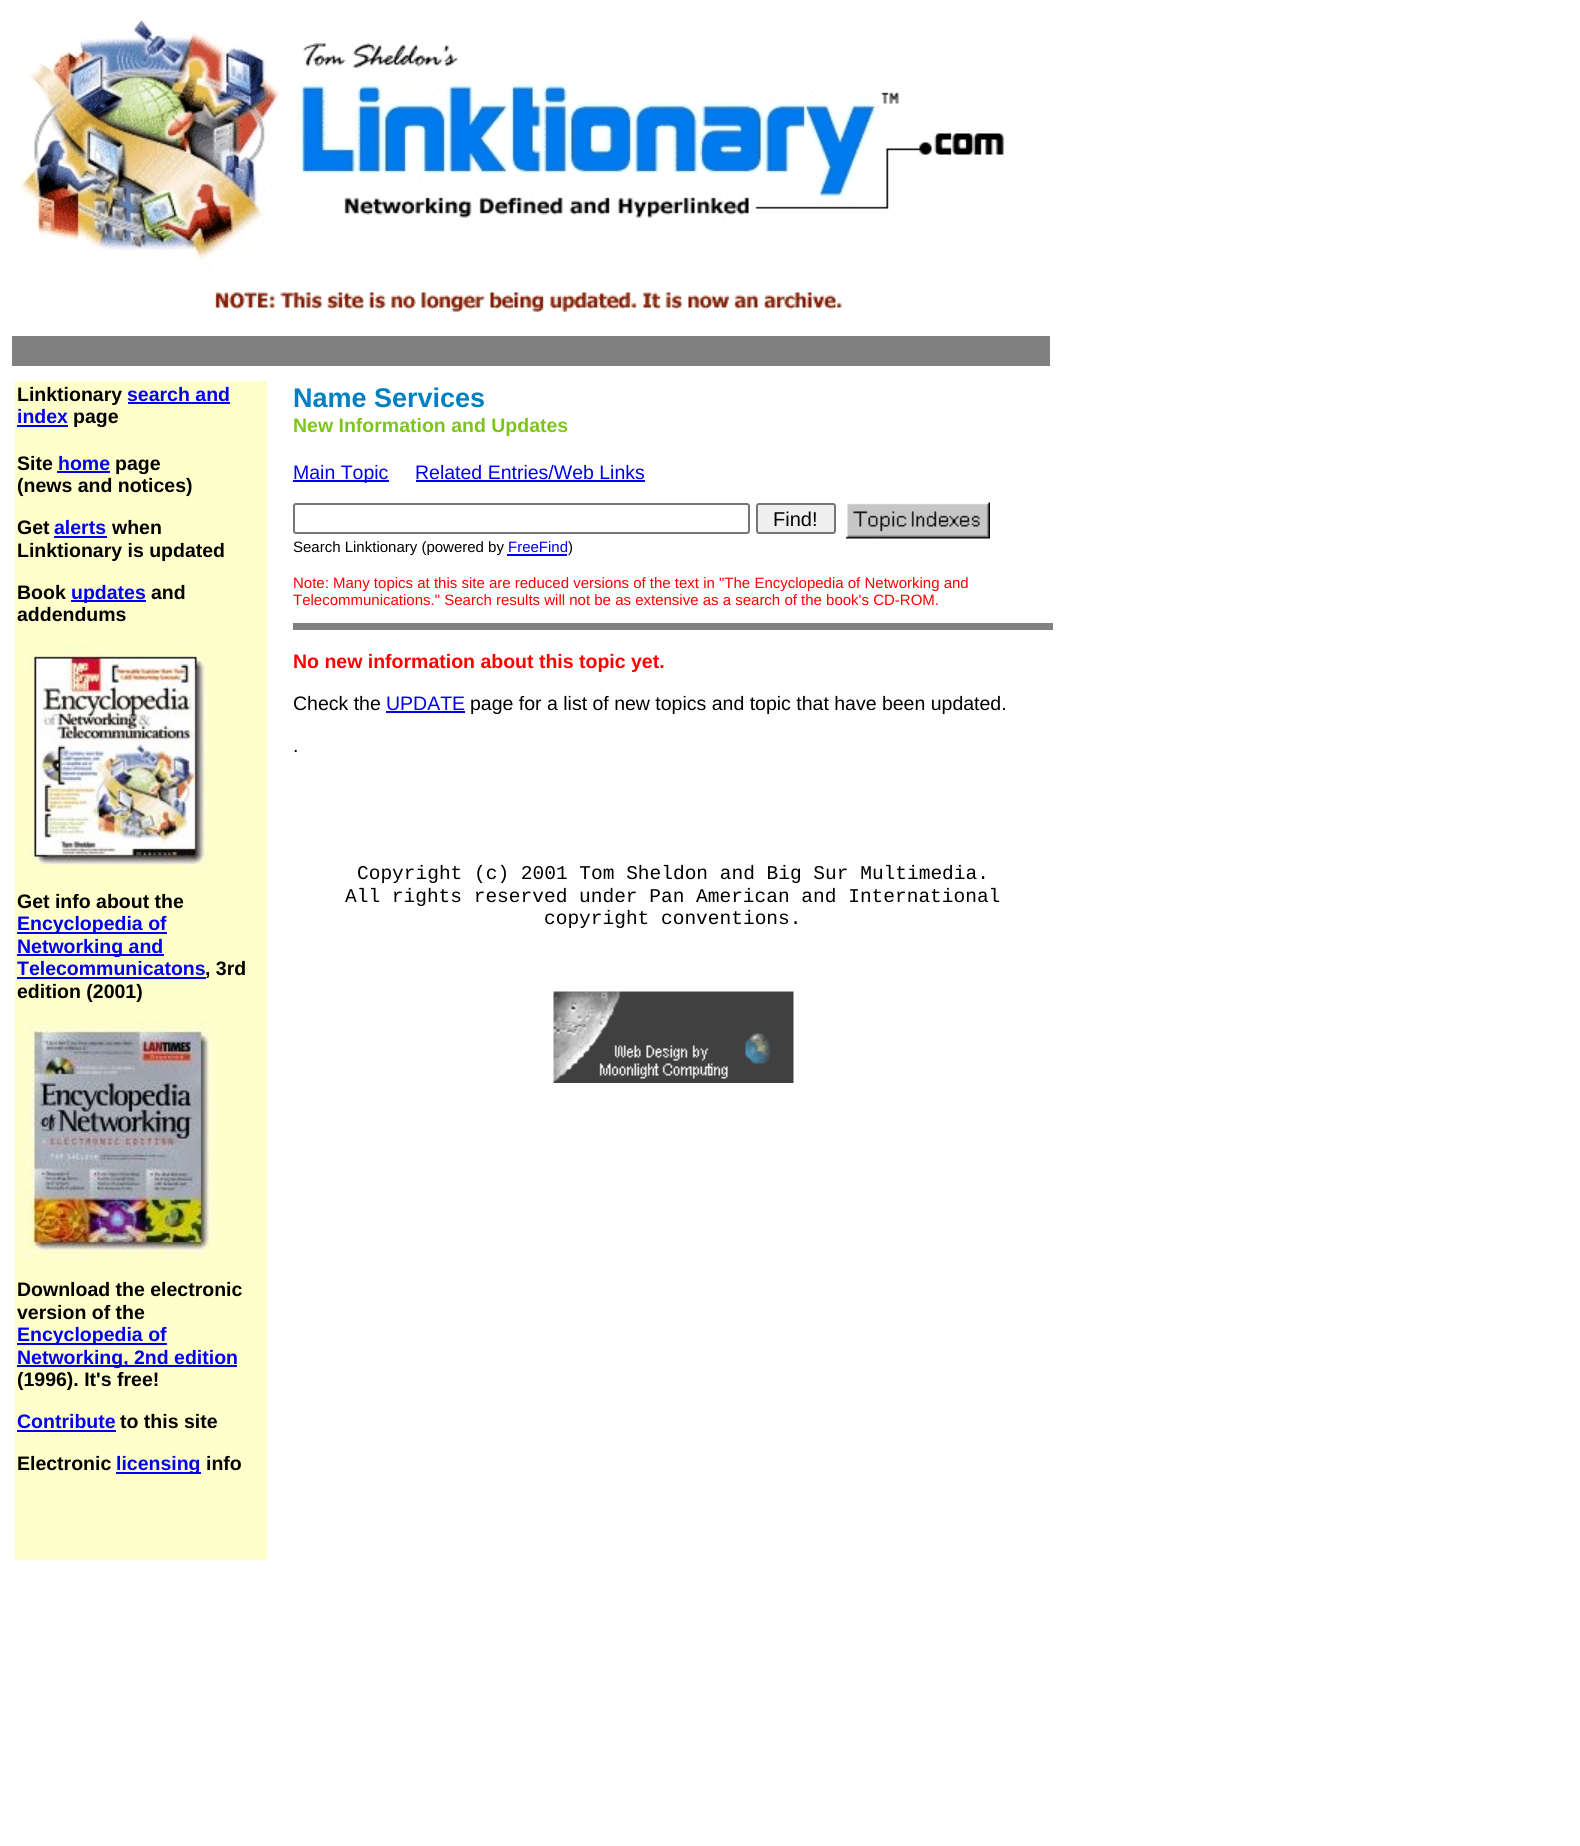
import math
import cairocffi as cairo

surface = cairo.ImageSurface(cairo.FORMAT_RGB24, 1580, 1846)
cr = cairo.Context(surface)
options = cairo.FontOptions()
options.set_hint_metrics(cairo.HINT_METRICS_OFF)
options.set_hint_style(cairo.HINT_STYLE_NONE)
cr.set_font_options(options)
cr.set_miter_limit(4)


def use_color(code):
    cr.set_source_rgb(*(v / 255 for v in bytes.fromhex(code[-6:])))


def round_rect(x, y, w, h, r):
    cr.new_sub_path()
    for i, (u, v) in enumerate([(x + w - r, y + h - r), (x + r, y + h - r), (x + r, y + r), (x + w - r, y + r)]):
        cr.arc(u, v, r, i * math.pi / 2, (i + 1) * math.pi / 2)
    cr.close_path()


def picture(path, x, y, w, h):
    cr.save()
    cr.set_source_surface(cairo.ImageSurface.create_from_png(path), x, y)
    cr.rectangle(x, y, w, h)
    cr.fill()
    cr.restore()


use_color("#ffffff")
cr.paint()
picture("img1.png", 12, 12, 994, 300)
use_color("#808080")
cr.rectangle(12, 336, 1038, 30)
cr.fill()
use_color("#ffffcc")
cr.rectangle(15, 381, 252, 1179)
cr.fill()
cr.select_font_face("Liberation Sans", cairo.FONT_SLANT_NORMAL, cairo.FONT_WEIGHT_BOLD)
cr.set_font_size(19.5)
use_color("#000000")
cr.move_to(17, 401)
cr.show_text("Linktionary")
use_color("#0000ee")
cr.move_to(127, 401)
cr.show_text("search and")
cr.rectangle(128, 402, 102, 2)
cr.fill()
cr.move_to(17, 423)
cr.show_text("index")
use_color("#000000")
cr.move_to(73, 423)
cr.show_text("page")
use_color("#0000ee")
cr.rectangle(17, 425, 51, 2)
cr.fill()
use_color("#000000")
cr.move_to(17, 470)
cr.show_text("Site")
use_color("#0000ee")
cr.move_to(58, 470)
cr.show_text("home")
cr.rectangle(57, 471, 53, 2)
cr.fill()
use_color("#000000")
cr.move_to(115, 470)
cr.show_text("page")
cr.move_to(17, 492)
cr.show_text("(news and notices)")
cr.move_to(17, 534)
cr.show_text("Get")
use_color("#0000ee")
cr.move_to(54, 534)
cr.show_text("alerts")
cr.rectangle(54, 536, 53, 2)
cr.fill()
use_color("#000000")
cr.move_to(112, 534)
cr.show_text("when")
cr.move_to(17, 557)
cr.show_text("Linktionary is updated")
cr.move_to(17, 599)
cr.show_text("Book")
use_color("#0000ee")
cr.rectangle(71, 600, 75, 2)
cr.fill()
cr.move_to(71, 599)
cr.show_text("updates")
use_color("#000000")
cr.move_to(151, 599)
cr.show_text("and")
cr.move_to(17, 621)
cr.show_text("addendums")
picture("img2.png", 16, 645, 193, 225)
cr.move_to(17, 908)
cr.show_text("Get info about the")
use_color("#0000ee")
cr.rectangle(17, 932, 150, 2)
cr.fill()
cr.move_to(17, 930)
cr.show_text("Encyclopedia of")
cr.rectangle(17, 954, 147, 2)
cr.fill()
cr.move_to(17, 953)
cr.show_text("Networking and")
cr.move_to(17, 975)
cr.show_text("Telecommunicatons")
cr.rectangle(17, 977, 189, 2)
cr.fill()
use_color("#000000")
cr.move_to(205, 975)
cr.show_text(", 3rd")
cr.move_to(17, 998)
cr.show_text("edition (2001)")
picture("img3.png", 16, 1022, 200, 237)
cr.move_to(17, 1296)
cr.show_text("Download the electronic")
cr.move_to(17, 1319)
cr.show_text("version of the")
use_color("#0000ee")
cr.rectangle(17, 1343, 150, 2)
cr.fill()
cr.move_to(17, 1341)
cr.show_text("Encyclopedia of")
cr.rectangle(17, 1365, 220, 2)
cr.fill()
cr.move_to(17, 1364)
cr.show_text("Networking, 2nd edition")
use_color("#000000")
cr.move_to(17, 1386)
cr.show_text("(1996). It's free!")
use_color("#0000ee")
cr.move_to(17, 1428)
cr.show_text("Contribute")
cr.rectangle(17, 1430, 99, 2)
cr.fill()
use_color("#000000")
cr.move_to(120, 1428)
cr.show_text("to this site")
cr.move_to(17, 1470)
cr.show_text("Electronic")
use_color("#0000ee")
cr.rectangle(116, 1472, 85, 2)
cr.fill()
cr.move_to(116, 1470)
cr.show_text("licensing")
use_color("#000000")
cr.move_to(206, 1470)
cr.show_text("info")
cr.set_font_size(27)
use_color("#0080c0")
cr.move_to(293, 407)
cr.show_text("Name Services")
cr.set_font_size(19.5)
use_color("#7bc618")
cr.move_to(293, 432)
cr.show_text("New Information and Updates")
use_color("#0000ee")
cr.rectangle(293, 480, 96, 2)
cr.fill()
cr.select_font_face("Liberation Sans")
cr.move_to(293, 479)
cr.show_text("Main Topic")
cr.move_to(415, 479)
cr.show_text("Related Entries/Web Links")
cr.rectangle(416, 480, 229, 2)
cr.fill()
round_rect(294, 504, 455, 29, 2)
use_color("#767676")
cr.stroke()
use_color("#efefef")
round_rect(757, 504, 78, 29, 2)
cr.fill_preserve()
use_color("#767676")
cr.stroke()
cr.set_font_size(20)
use_color("#000000")
cr.move_to(773, 526)
cr.show_text("Find!")
picture("img4.png", 846, 502, 144, 37)
cr.set_font_size(15)
cr.move_to(293, 552)
cr.show_text("Search Linktionary (powered by")
use_color("#0000ee")
cr.move_to(508, 552)
cr.show_text("FreeFind")
use_color("#000000")
cr.move_to(568, 552)
cr.show_text(")")
use_color("#0000ee")
cr.rectangle(507, 554, 60, 2)
cr.fill()
use_color("#ff0000")
cr.move_to(293, 588)
cr.show_text("Note: Many topics at this site are reduced versions of the text in \"The Encyclopedia of Networking and")
cr.move_to(293, 605)
cr.show_text("Telecommunications.\" Search results will not be as extensive as a search of the book's CD-ROM.")
use_color("#808080")
cr.rectangle(293, 623, 760, 7)
cr.fill()
cr.select_font_face("Liberation Sans", cairo.FONT_SLANT_NORMAL, cairo.FONT_WEIGHT_BOLD)
cr.set_font_size(19.5)
use_color("#ff0000")
cr.move_to(293, 668)
cr.show_text("No new information about this topic yet.")
cr.select_font_face("Liberation Sans")
use_color("#000000")
cr.move_to(293, 710)
cr.show_text("Check the")
use_color("#0000ee")
cr.move_to(386, 710)
cr.show_text("UPDATE")
cr.rectangle(386, 711, 79, 2)
cr.fill()
use_color("#000000")
cr.move_to(470, 710)
cr.show_text("page for a list of new topics and topic that have been updated.")
cr.move_to(293, 752)
cr.show_text(".")
cr.select_font_face("Liberation Mono")
cr.move_to(357, 879)
cr.show_text("Copyright (c) 2001 Tom Sheldon and Big Sur Multimedia.")
cr.move_to(345, 902)
cr.show_text("All rights reserved under Pan American and International")
cr.move_to(544, 924)
cr.show_text("copyright conventions.")
picture("img5.png", 553, 991, 241, 92)
surface.write_to_png("result.png")
